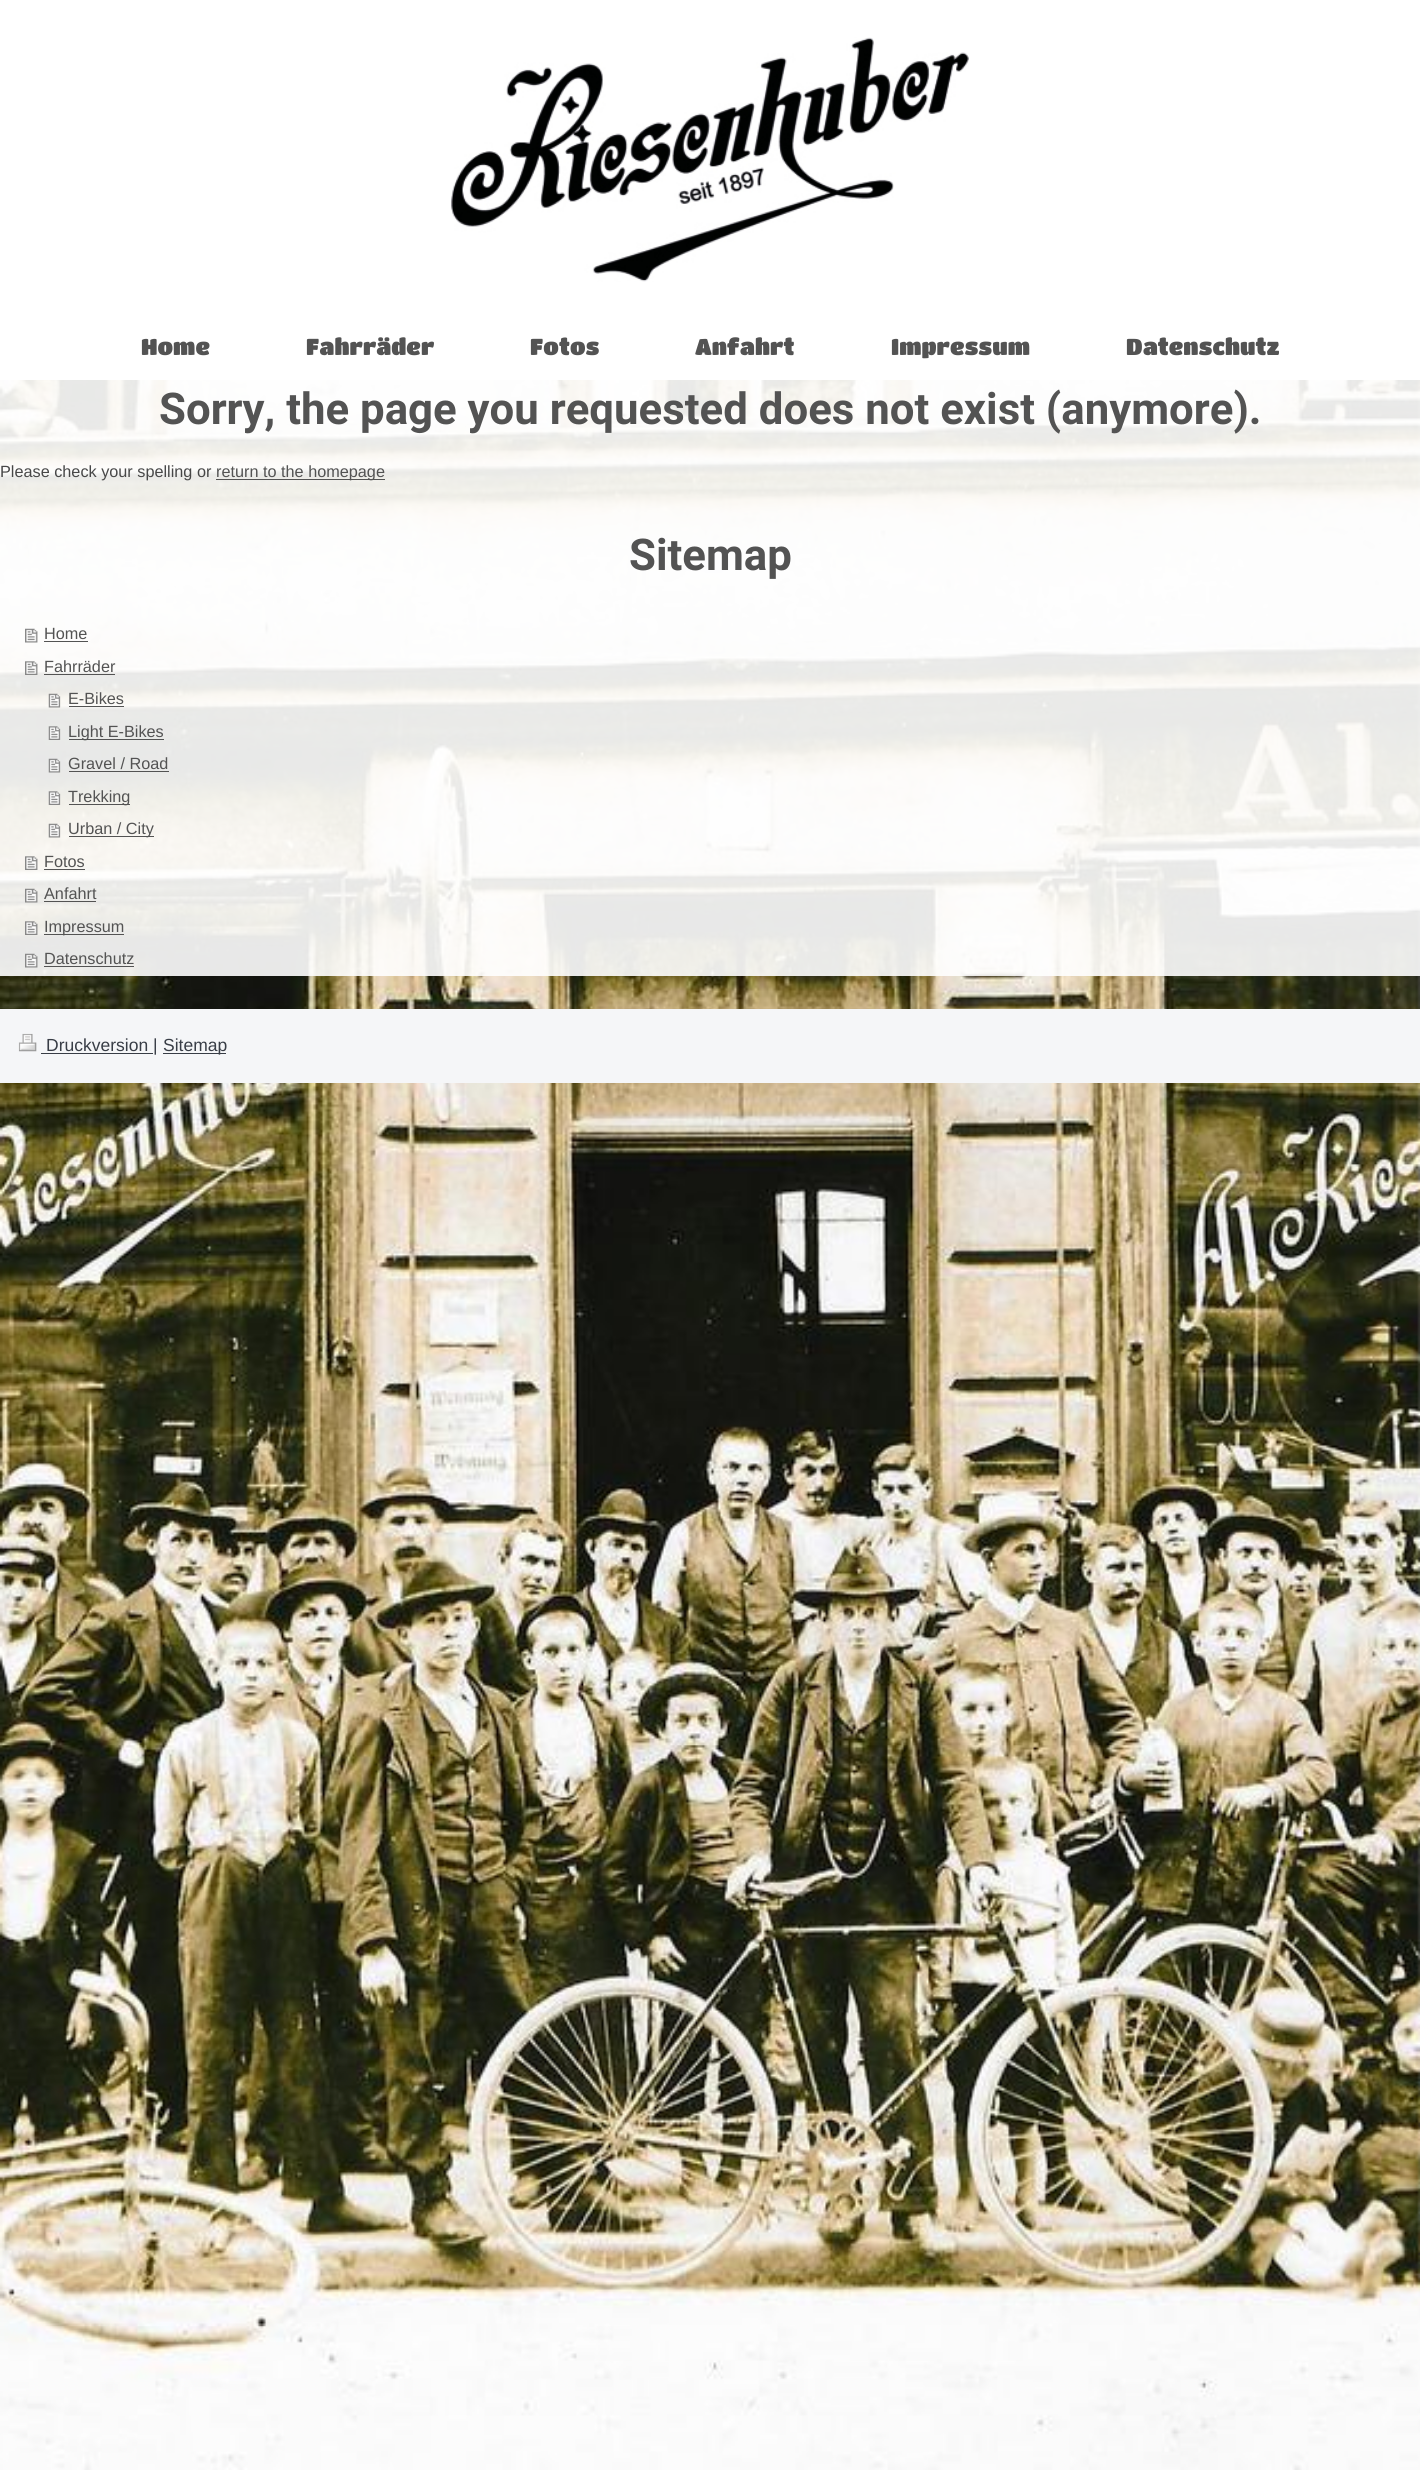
import math
import cairocffi as cairo

surface = cairo.ImageSurface(cairo.FORMAT_RGB24, 1420, 2470)
cr = cairo.Context(surface)
options = cairo.FontOptions()
options.set_hint_metrics(cairo.HINT_METRICS_OFF)
options.set_hint_style(cairo.HINT_STYLE_NONE)
cr.set_font_options(options)
cr.set_miter_limit(4)


def use_color(code):
    cr.set_source_rgb(*(v / 255 for v in bytes.fromhex(code[-6:])))


def picture(path, x, y, w, h):
    cr.save()
    cr.set_source_surface(cairo.ImageSurface.create_from_png(path), x, y)
    cr.rectangle(x, y, w, h)
    cr.fill()
    cr.restore()


use_color("#ffffff")
cr.paint()
picture("img1.png", 0, 380, 1420, 2090)
picture("img2.png", 451, 37, 518, 245)
cr.select_font_face("Titan One")
cr.set_font_size(22.75)
use_color("#535353")
cr.move_to(141, 355)
cr.show_text("Home")
cr.move_to(306, 355)
cr.show_text("Fahrräder")
cr.move_to(530, 355)
cr.show_text("Fotos")
cr.move_to(695, 355)
cr.show_text("Anfahrt")
cr.move_to(891, 355)
cr.show_text("Impressum")
cr.move_to(1126, 355)
cr.show_text("Datenschutz")
cr.set_source_rgba(1, 1, 1, 0.9)
cr.rectangle(0, 380, 1420, 596)
cr.fill()
cr.select_font_face("Roboto", cairo.FONT_SLANT_NORMAL, cairo.FONT_WEIGHT_BOLD)
cr.set_font_size(43.75)
use_color("#535353")
cr.move_to(159, 424)
cr.show_text("Sorry, the page you requested does not exist (anymore).")
cr.select_font_face("Liberation Sans")
cr.set_font_size(16.25)
use_color("#474747")
cr.move_to(0, 477)
cr.show_text("Please check your spelling or")
use_color("#535353")
cr.rectangle(216, 479, 169, 1)
cr.fill()
cr.move_to(216, 477)
cr.show_text("return to the homepage")
cr.select_font_face("Roboto", cairo.FONT_SLANT_NORMAL, cairo.FONT_WEIGHT_BOLD)
cr.set_font_size(43.75)
cr.move_to(629, 570)
cr.show_text("Sitemap")
picture("img3.png", 25, 628, 13, 15)
cr.select_font_face("Liberation Sans")
cr.set_font_size(16.25)
cr.move_to(44, 639)
cr.show_text("Home")
cr.rectangle(44, 641, 44, 1)
cr.fill()
picture("img4.png", 25, 661, 13, 14)
cr.move_to(44, 672)
cr.show_text("Fahrräder")
cr.rectangle(44, 674, 71, 1)
cr.fill()
picture("img5.png", 48, 693, 13, 15)
cr.move_to(68, 704)
cr.show_text("E-Bikes")
cr.rectangle(69, 706, 55, 1)
cr.fill()
picture("img6.png", 48, 726, 13, 14)
cr.rectangle(69, 739, 95, 1)
cr.fill()
cr.move_to(68, 737)
cr.show_text("Light E-Bikes")
picture("img7.png", 48, 758, 13, 15)
cr.move_to(68, 769)
cr.show_text("Gravel / Road")
cr.rectangle(69, 771, 100, 1)
cr.fill()
picture("img8.png", 48, 791, 13, 14)
cr.rectangle(69, 804, 61, 1)
cr.fill()
cr.move_to(68, 802)
cr.show_text("Trekking")
picture("img9.png", 48, 823, 13, 15)
cr.rectangle(69, 836, 85, 1)
cr.fill()
cr.move_to(68, 834)
cr.show_text("Urban / City")
picture("img10.png", 25, 856, 13, 14)
cr.move_to(44, 867)
cr.show_text("Fotos")
cr.rectangle(44, 869, 41, 1)
cr.fill()
picture("img11.png", 25, 888, 13, 15)
cr.move_to(44, 899)
cr.show_text("Anfahrt")
cr.rectangle(44, 901, 52, 1)
cr.fill()
picture("img12.png", 25, 921, 13, 14)
cr.rectangle(44, 934, 80, 1)
cr.fill()
cr.move_to(44, 932)
cr.show_text("Impressum")
picture("img13.png", 25, 953, 13, 15)
cr.move_to(44, 964)
cr.show_text("Datenschutz")
cr.rectangle(44, 966, 90, 1)
cr.fill()
use_color("#f5f6f8")
cr.rectangle(0, 1009, 1420, 74)
cr.fill()
picture("img14.png", 18, 1033, 19, 19)
use_color("#383d46")
cr.rectangle(41, 1053, 112, 1)
cr.fill()
cr.set_font_size(17.5)
cr.move_to(46, 1051)
cr.show_text("Druckversion |")
cr.rectangle(163, 1053, 63, 1)
cr.fill()
cr.move_to(163, 1051)
cr.show_text("Sitemap")
surface.write_to_png("result.png")
